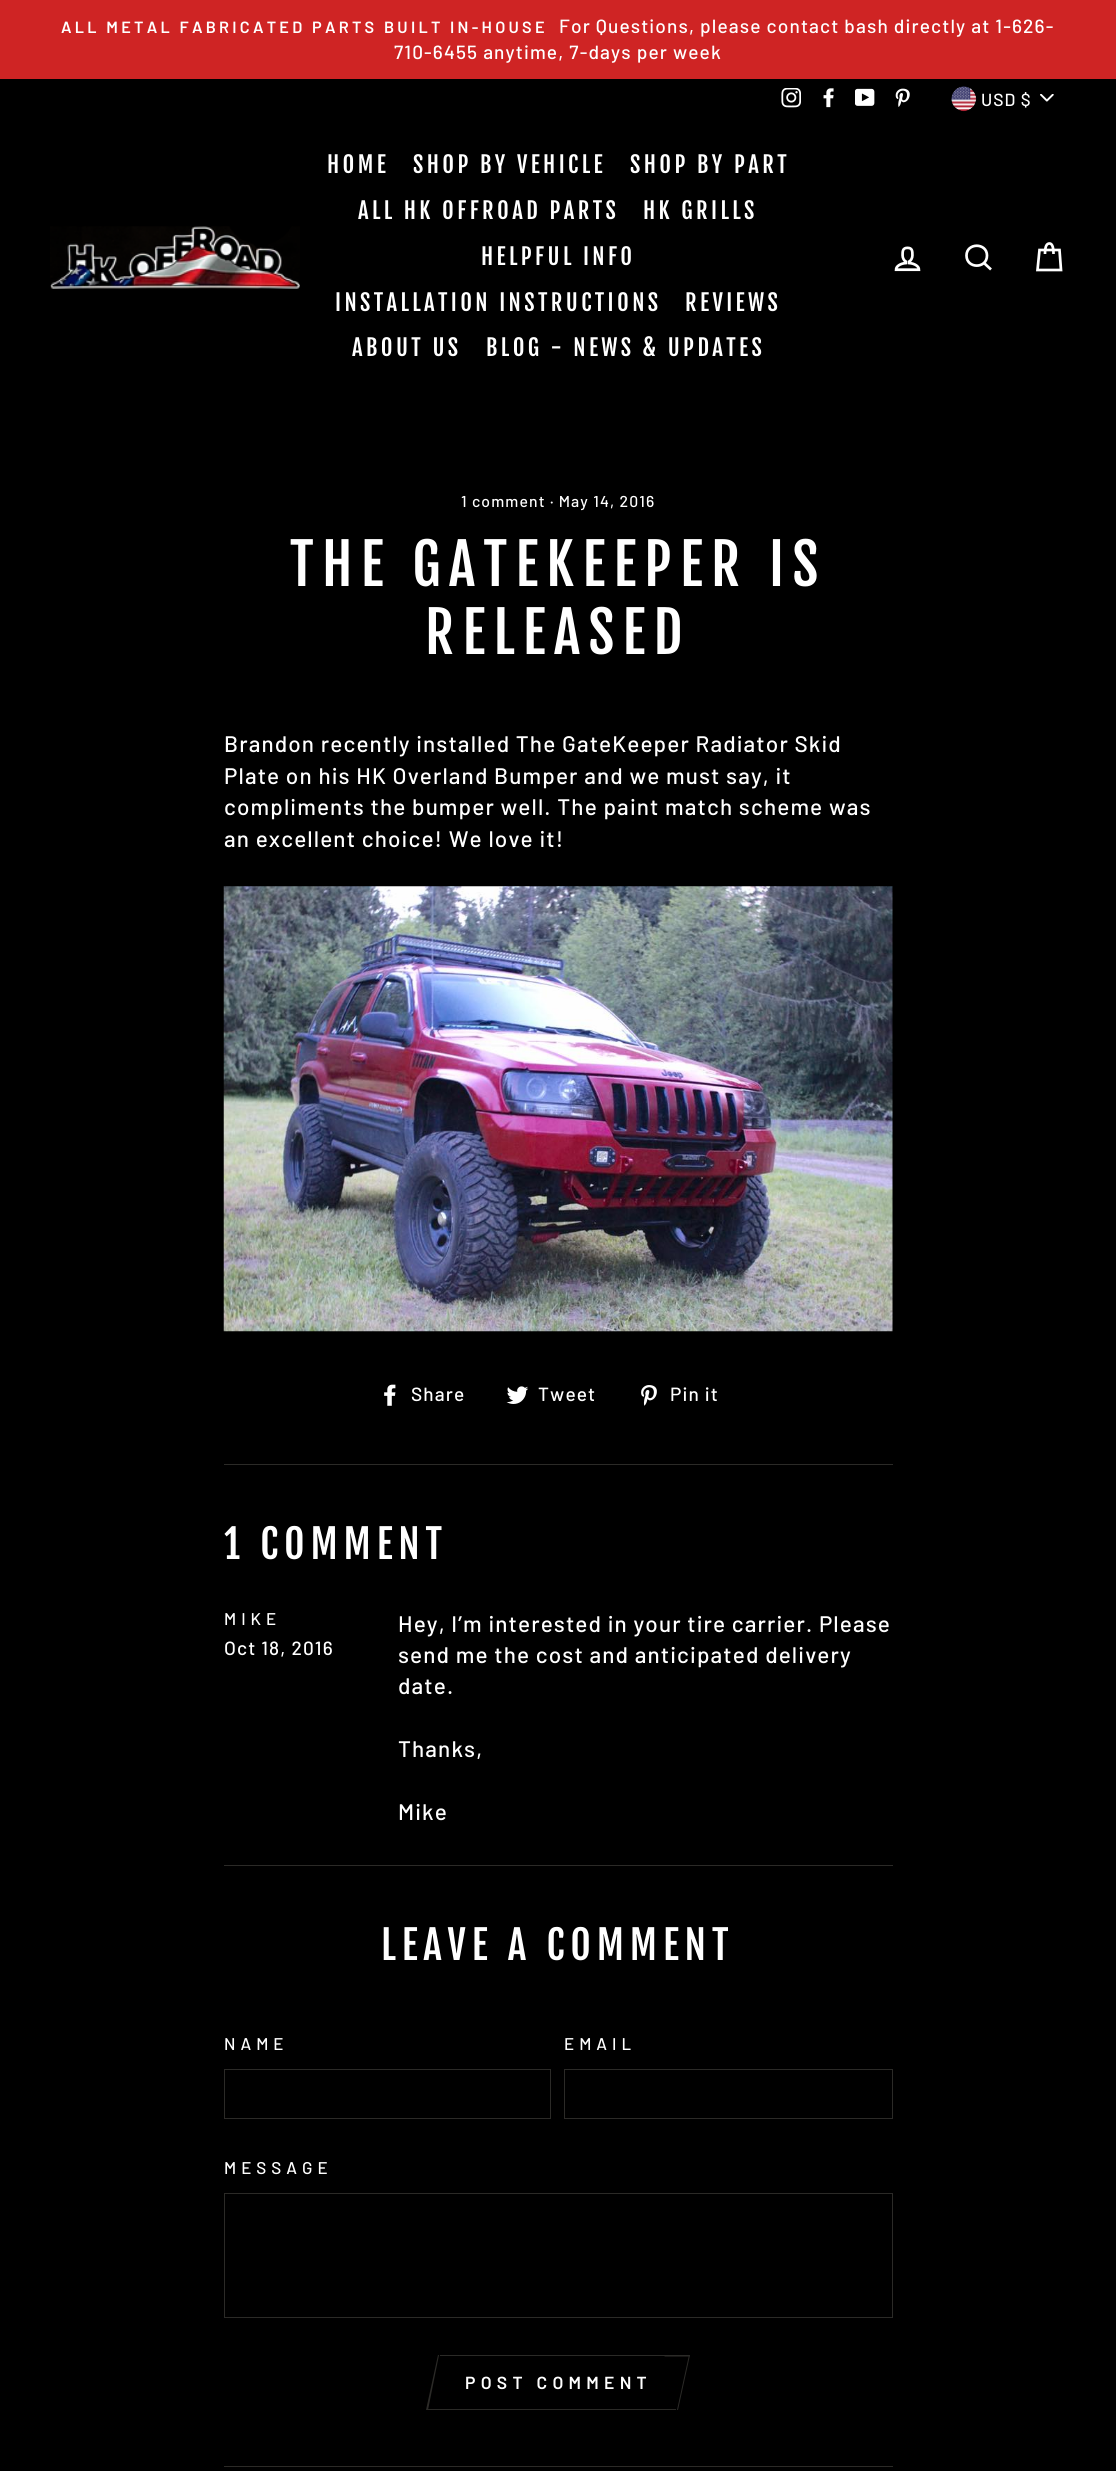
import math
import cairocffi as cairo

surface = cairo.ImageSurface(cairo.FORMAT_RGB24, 1116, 2471)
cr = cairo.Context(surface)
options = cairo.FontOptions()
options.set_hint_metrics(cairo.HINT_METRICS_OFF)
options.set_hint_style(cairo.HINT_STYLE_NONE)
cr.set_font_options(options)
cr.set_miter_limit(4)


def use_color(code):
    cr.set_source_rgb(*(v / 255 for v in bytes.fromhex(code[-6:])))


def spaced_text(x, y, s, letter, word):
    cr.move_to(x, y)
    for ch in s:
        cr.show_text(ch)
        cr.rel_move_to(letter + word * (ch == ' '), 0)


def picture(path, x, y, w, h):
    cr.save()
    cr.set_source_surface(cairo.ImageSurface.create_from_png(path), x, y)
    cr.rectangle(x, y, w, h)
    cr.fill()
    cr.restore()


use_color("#000000")
cr.paint()
use_color("#cf2424")
cr.rectangle(0, 0, 1116, 79)
cr.fill()
cr.select_font_face("Barlow SemiBold")
cr.set_font_size(16.25)
use_color("#ffffff")
spaced_text(61, 33, "ALL METAL FABRICATED PARTS BUILT IN-HOUSE", 3.25, 0)
cr.select_font_face("Barlow Medium")
cr.set_font_size(19.1)
spaced_text(559, 33, "For Questions, please contact bash directly at 1-626-", 1.12, 0)
spaced_text(394, 59, "710-6455 anytime, 7-days per week", 1.12, 0)
picture("img1.png", 781, 88, 20, 20)
picture("img2.png", 823, 88, 11, 20)
picture("img3.png", 855, 88, 20, 18)
picture("img4.png", 895, 88, 15, 19)
picture("img5.png", 1040, 94, 14, 8)
picture("img6.png", 951, 86, 26, 26)
cr.set_font_size(17.5)
spaced_text(981, 106, "USD $", 1, 0)
picture("img7.png", 50, 226, 250, 63)
cr.select_font_face("Fjalla One")
cr.set_font_size(22.5)
spaced_text(327, 173, "HOME", 3.4, 0)
spaced_text(413, 173, "SHOP BY VEHICLE", 3.4, 0)
spaced_text(630, 173, "SHOP BY PART", 3.4, 0)
spaced_text(358, 219, "ALL HK OFFROAD PARTS", 3.4, 0)
spaced_text(643, 219, "HK GRILLS", 3.4, 0)
spaced_text(481, 265, "HELPFUL INFO", 3.4, 0)
spaced_text(335, 311, "INSTALLATION INSTRUCTIONS", 3.4, 0)
spaced_text(685, 311, "REVIEWS", 3.4, 0)
spaced_text(352, 356, "ABOUT US", 3.4, 0)
spaced_text(486, 356, "BLOG - NEWS & UPDATES", 3.4, 0)
picture("img8.png", 894, 246, 27, 26)
cr.new_path()
cr.move_to(987, 255.5)
cr.curve_to(987, 269, 966.5, 269, 966.5, 255.5)
cr.curve_to(966.5, 242.5, 987, 242.5, 987, 255.5)
cr.close_path()
cr.move_to(991, 269.5)
cr.line_to(984, 263)
cr.set_line_width(2.7)
cr.stroke()
cr.new_path()
cr.move_to(1045, 254)
cr.curve_to(1045, 245.5, 1047, 243.5, 1049.5, 243.5)
cr.curve_to(1051.5, 243.5, 1053.5, 245.5, 1053.5, 254)
cr.move_to(1039.5, 250)
cr.line_to(1059.5, 250)
cr.line_to(1061, 270)
cr.line_to(1037.5, 270)
cr.close_path()
cr.stroke()
cr.select_font_face("Barlow Medium")
cr.set_font_size(15.75)
spaced_text(461, 507, "1 comment · May 14, 2016", 1.12, 0)
cr.select_font_face("Fjalla One")
cr.set_font_size(56.25)
spaced_text(290, 586, "THE GATEKEEPER IS", 8.4, 0)
spaced_text(425, 654, "RELEASED", 8.4, 0)
cr.select_font_face("Barlow Medium")
cr.set_font_size(22.5)
spaced_text(224, 752, "Brandon recently installed The GateKeeper Radiator Skid", 1.12, 0)
spaced_text(224, 784, "Plate on his HK Overland Bumper and we must say, it", 1.12, 0)
spaced_text(224, 815, "compliments the bumper well. The paint match scheme was", 1.12, 0)
spaced_text(224, 847, "an excellent choice! We love it!", 1.12, 0)
picture("img9.png", 223, 886, 670, 446)
picture("img10.png", 384, 1384, 12, 22)
cr.set_font_size(19.1)
spaced_text(411, 1401, "Share", 1.12, 0)
picture("img11.png", 506, 1386, 23, 18)
spaced_text(538, 1401, "Tweet", 1.12, 0)
picture("img12.png", 641, 1385, 16, 21)
spaced_text(670, 1401, "Pin it", 1.12, 0)
use_color("#2b2a27")
cr.rectangle(224, 1464, 669, 1)
cr.fill()
cr.select_font_face("Fjalla One")
cr.set_font_size(39.4)
use_color("#ffffff")
spaced_text(224, 1559, "1 COMMENT", 5.9, 0)
cr.select_font_face("Barlow Medium")
cr.set_font_size(17)
spaced_text(224, 1625, "MIKE", 5, 0)
cr.set_font_size(19.1)
spaced_text(224, 1655, "Oct 18, 2016", 1.12, 0)
cr.set_font_size(22.5)
spaced_text(398, 1632, "Hey, I’m interested in your tire carrier. Please", 1.12, 0)
spaced_text(398, 1663, "send me the cost and anticipated delivery", 1.12, 0)
spaced_text(398, 1694, "date.", 1.12, 0)
spaced_text(398, 1757, "Thanks,", 1.12, 0)
spaced_text(398, 1820, "Mike", 1.12, 0)
use_color("#2b2a27")
cr.rectangle(224, 1865, 669, 1)
cr.fill()
cr.select_font_face("Fjalla One")
cr.set_font_size(39.4)
use_color("#ffffff")
spaced_text(381, 1960, "LEAVE A COMMENT", 5.9, 0)
cr.select_font_face("Barlow Medium")
cr.set_font_size(17)
spaced_text(224, 2050, "NAME", 5, 0)
cr.rectangle(224.5, 2069.5, 326, 49)
use_color("#2b2a27")
cr.set_line_width(1)
cr.stroke()
use_color("#ffffff")
spaced_text(564, 2050, "EMAIL", 5, 0)
cr.rectangle(564.5, 2069.5, 328, 49)
use_color("#2b2a27")
cr.stroke()
use_color("#ffffff")
spaced_text(224, 2174, "MESSAGE", 5, 0)
cr.rectangle(224.5, 2193.5, 668, 124)
use_color("#2b2a27")
cr.stroke()
cr.rectangle(440, 2355, 225, 1)
cr.fill()
cr.rectangle(427, 2409, 249, 1)
cr.fill()
cr.new_path()
cr.move_to(438, 2355)
cr.line_to(439, 2355)
cr.line_to(428, 2410)
cr.line_to(426, 2410)
cr.close_path()
cr.fill()
cr.select_font_face("Barlow SemiBold")
cr.set_font_size(17.5)
use_color("#ffffff")
spaced_text(465, 2389, "POST COMMENT", 5.25, 0)
use_color("#2b2a27")
cr.new_path()
cr.move_to(665, 2355)
cr.line_to(690, 2355)
cr.line_to(689.5, 2356.5)
cr.line_to(664.5, 2356.5)
cr.close_path()
cr.fill()
cr.new_path()
cr.move_to(689, 2355)
cr.line_to(690, 2355)
cr.line_to(678, 2410)
cr.line_to(677, 2410)
cr.close_path()
cr.fill()
cr.rectangle(224, 2466, 669, 1)
cr.fill()
surface.write_to_png("result.png")
